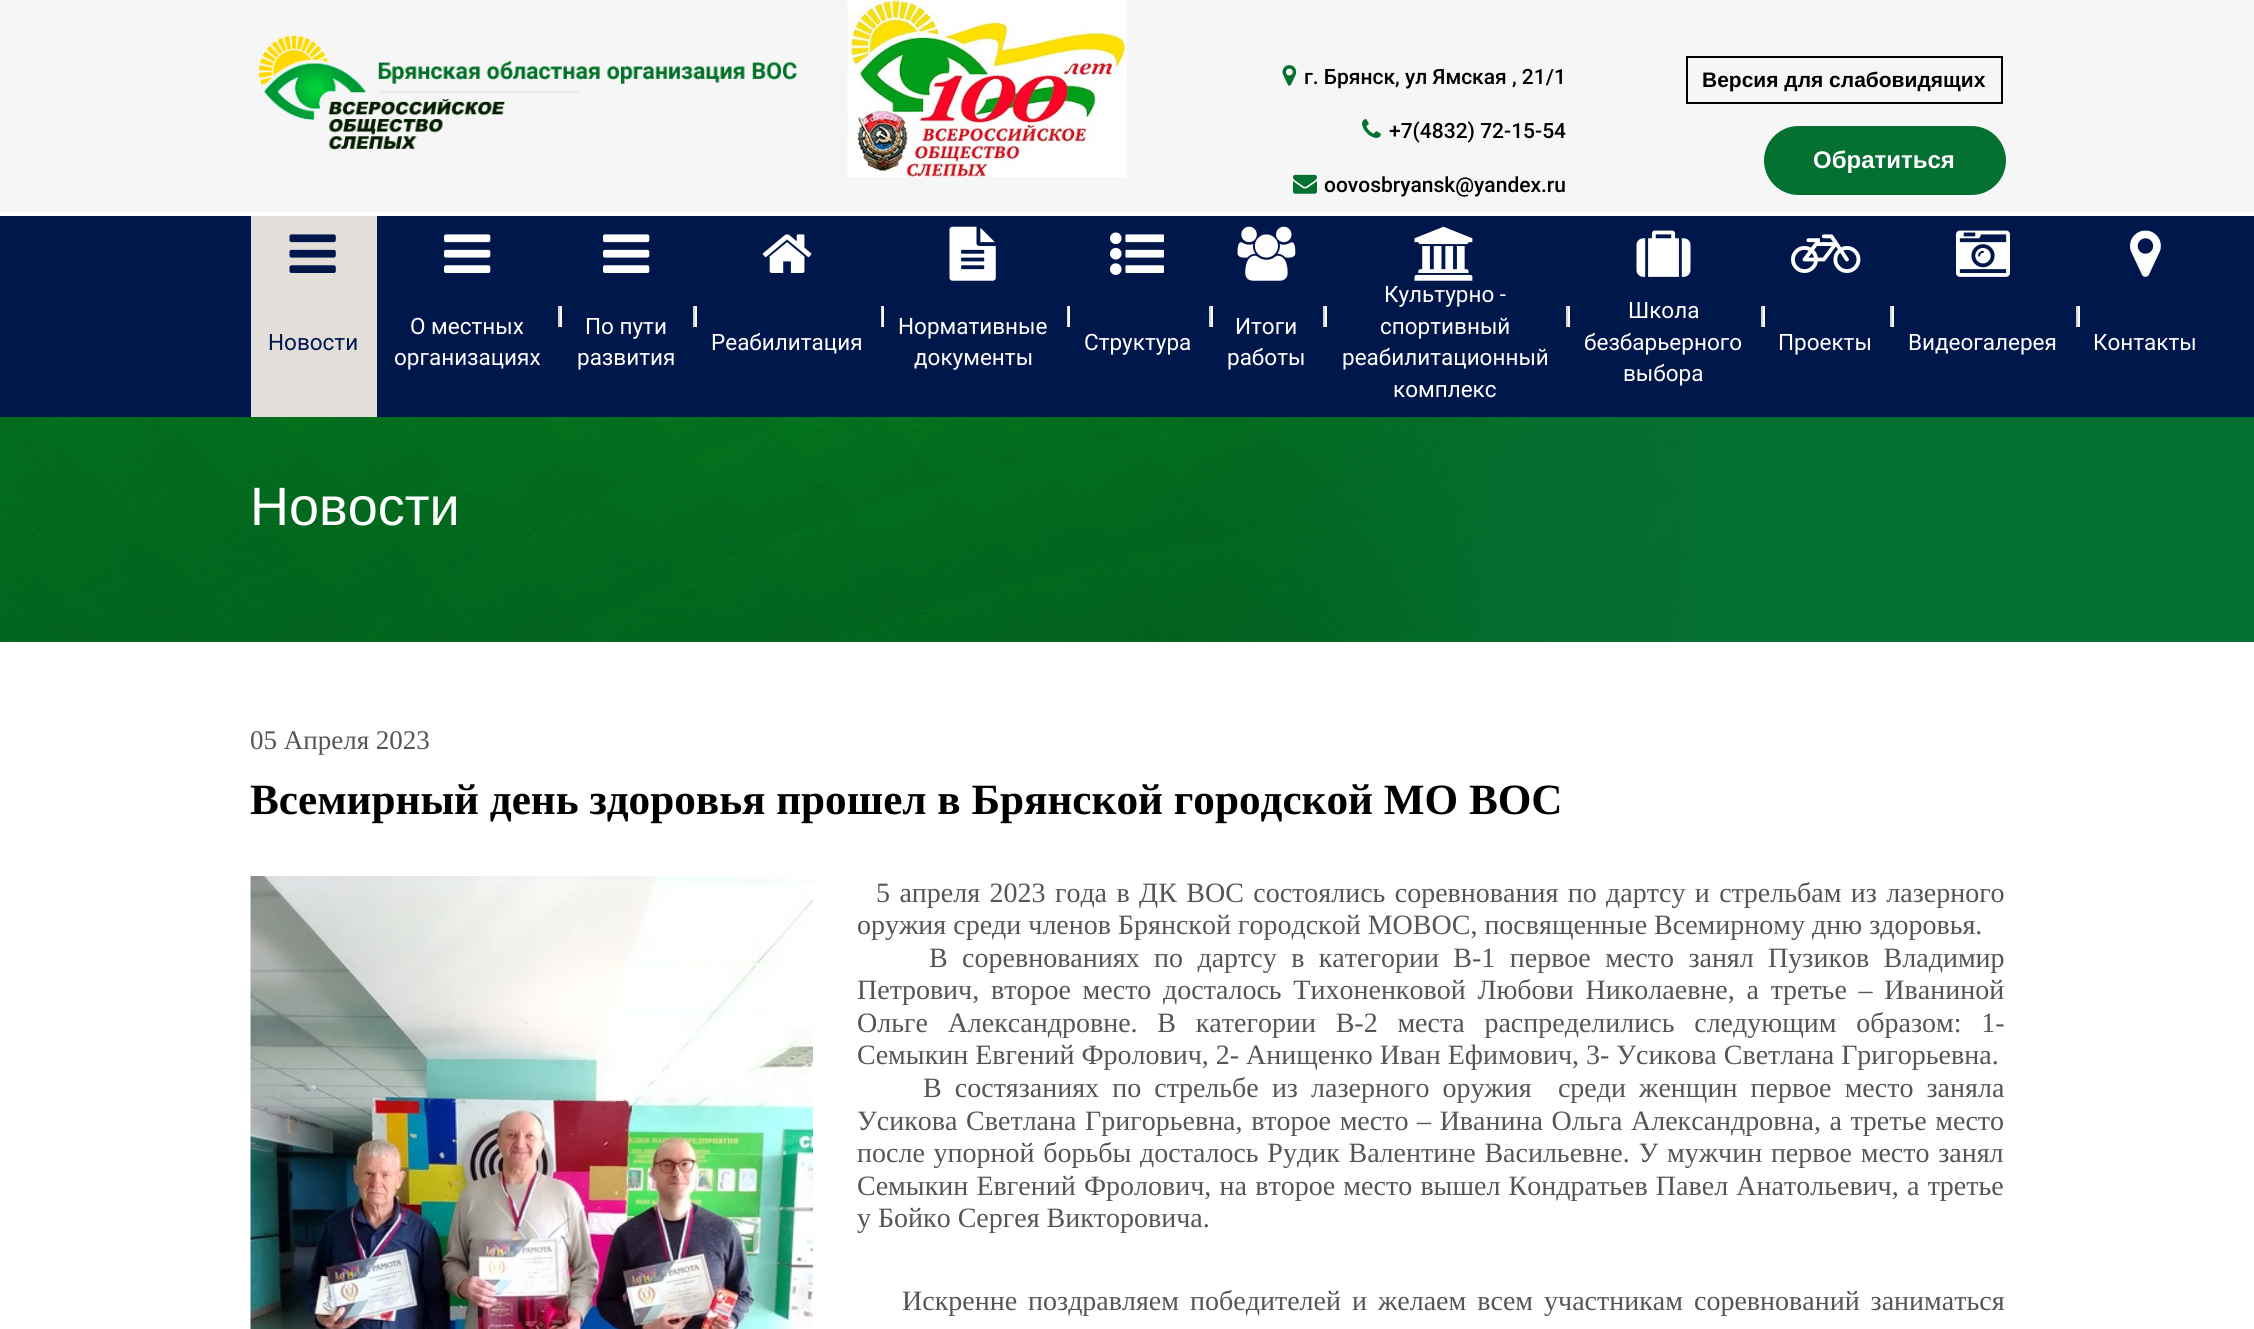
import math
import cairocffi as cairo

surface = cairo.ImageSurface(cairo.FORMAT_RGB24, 2254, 1329)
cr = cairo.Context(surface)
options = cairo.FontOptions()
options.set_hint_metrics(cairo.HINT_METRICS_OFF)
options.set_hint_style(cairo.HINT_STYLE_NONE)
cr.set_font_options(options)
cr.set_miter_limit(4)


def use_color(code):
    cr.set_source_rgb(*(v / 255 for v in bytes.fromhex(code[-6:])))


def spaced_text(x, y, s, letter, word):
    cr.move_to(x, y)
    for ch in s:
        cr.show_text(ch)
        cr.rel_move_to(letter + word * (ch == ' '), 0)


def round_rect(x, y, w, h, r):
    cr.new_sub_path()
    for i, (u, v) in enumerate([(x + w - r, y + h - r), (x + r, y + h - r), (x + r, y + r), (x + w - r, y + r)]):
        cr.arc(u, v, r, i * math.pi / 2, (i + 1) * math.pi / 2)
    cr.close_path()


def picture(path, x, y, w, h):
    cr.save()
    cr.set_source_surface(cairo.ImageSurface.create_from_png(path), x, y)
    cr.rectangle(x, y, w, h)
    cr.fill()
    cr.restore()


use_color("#ffffff")
cr.paint()
use_color("#f6f6f6")
cr.rectangle(0, 0, 2254, 212)
cr.fill()
picture("img1.png", 259, 35, 538, 115)
picture("img2.png", 847, 0, 280, 177)
picture("img3.png", 1282, 65, 15, 21)
cr.select_font_face("Roboto Medium")
cr.set_font_size(21)
use_color("#000000")
cr.move_to(1304, 84)
cr.show_text("г. Брянск, ул Ямская , 21/1")
picture("img4.png", 1362, 119, 19, 19)
cr.move_to(1389, 138)
cr.show_text("+7(4832) 72-15-54")
picture("img5.png", 1293, 174, 24, 20)
cr.move_to(1324, 192)
cr.show_text("oovosbryansk@yandex.ru")
cr.rectangle(1687, 57, 315, 46)
cr.stroke()
cr.select_font_face("Liberation Sans", cairo.FONT_SLANT_NORMAL, cairo.FONT_WEIGHT_BOLD)
cr.move_to(1702, 87)
cr.show_text("Версия для слабовидящих")
use_color("#047031")
round_rect(1764, 126, 242, 69, 34.5)
cr.fill()
cr.set_font_size(24)
use_color("#ffffff")
cr.move_to(1813, 168)
cr.show_text("Обратиться")
use_color("#00174b")
cr.rectangle(0, 216, 2254, 201)
cr.fill()
use_color("#e3deda")
cr.rectangle(251, 216, 126, 201)
cr.fill()
picture("img6.png", 289, 234, 47, 39)
cr.select_font_face("Roboto")
cr.set_font_size(22.5)
use_color("#00174b")
cr.move_to(268, 350)
cr.show_text("Новости")
picture("img7.png", 444, 234, 47, 39)
use_color("#ffffff")
cr.move_to(410, 334)
cr.show_text("О местных")
cr.move_to(394, 365)
cr.show_text("организациях")
picture("img7.png", 603, 234, 47, 39)
use_color("#d4d4d4")
cr.rectangle(558, 306, 2, 21)
cr.fill()
use_color("#fbfbfb")
cr.rectangle(560, 306, 2, 21)
cr.fill()
use_color("#ffffff")
cr.move_to(585, 334)
cr.show_text("По пути")
cr.move_to(577, 365)
cr.show_text("развития")
picture("img8.png", 762, 234, 50, 39)
use_color("#d4d4d4")
cr.rectangle(693, 306, 2, 21)
cr.fill()
use_color("#fbfbfb")
cr.rectangle(695, 306, 2, 21)
cr.fill()
use_color("#ffffff")
cr.move_to(711, 350)
cr.show_text("Реабилитация")
picture("img9.png", 949, 226, 47, 55)
use_color("#d4d4d4")
cr.rectangle(881, 306, 1, 21)
cr.fill()
use_color("#fbfbfb")
cr.rectangle(882, 306, 2, 21)
cr.fill()
use_color("#ffffff")
cr.move_to(898, 334)
cr.show_text("Нормативные")
cr.move_to(914, 365)
cr.show_text("документы")
picture("img10.png", 1110, 232, 54, 43)
use_color("#d4d4d4")
cr.rectangle(1067, 306, 1, 21)
cr.fill()
use_color("#fbfbfb")
cr.rectangle(1068, 306, 2, 21)
cr.fill()
use_color("#ffffff")
cr.move_to(1084, 350)
cr.show_text("Структура")
picture("img11.png", 1237, 226, 59, 55)
use_color("#d4d4d4")
cr.rectangle(1209, 306, 2, 21)
cr.fill()
use_color("#fbfbfb")
cr.rectangle(1211, 306, 2, 21)
cr.fill()
use_color("#ffffff")
cr.move_to(1235, 334)
cr.show_text("Итоги")
cr.move_to(1227, 365)
cr.show_text("работы")
picture("img12.png", 1414, 226, 59, 55)
use_color("#d4d4d4")
cr.rectangle(1323, 306, 2, 21)
cr.fill()
use_color("#fbfbfb")
cr.rectangle(1325, 306, 2, 21)
cr.fill()
use_color("#ffffff")
cr.move_to(1384, 302)
cr.show_text("Культурно -")
cr.move_to(1380, 334)
cr.show_text("спортивный")
cr.move_to(1342, 365)
cr.show_text("реабилитационный")
cr.move_to(1393, 397)
cr.show_text("комплекс")
picture("img13.png", 1636, 230, 55, 47)
use_color("#d4d4d4")
cr.rectangle(1566, 306, 2, 21)
cr.fill()
use_color("#fbfbfb")
cr.rectangle(1568, 306, 2, 21)
cr.fill()
use_color("#ffffff")
cr.move_to(1628, 318)
cr.show_text("Школа")
cr.move_to(1584, 350)
cr.show_text("безбарьерного")
cr.move_to(1623, 381)
cr.show_text("выбора")
picture("img14.png", 1791, 234, 70, 39)
use_color("#d4d4d4")
cr.rectangle(1761, 306, 2, 21)
cr.fill()
use_color("#fbfbfb")
cr.rectangle(1763, 306, 2, 21)
cr.fill()
use_color("#ffffff")
cr.move_to(1778, 350)
cr.show_text("Проекты")
picture("img15.png", 1956, 230, 54, 47)
use_color("#d4d4d4")
cr.rectangle(1890, 306, 2, 21)
cr.fill()
use_color("#fbfbfb")
cr.rectangle(1892, 306, 2, 21)
cr.fill()
use_color("#ffffff")
cr.move_to(1908, 350)
cr.show_text("Видеогалерея")
picture("img16.png", 2130, 230, 31, 47)
use_color("#d4d4d4")
cr.rectangle(2076, 306, 2, 21)
cr.fill()
use_color("#fbfbfb")
cr.rectangle(2078, 306, 2, 21)
cr.fill()
use_color("#ffffff")
cr.move_to(2093, 350)
cr.show_text("Контакты")
picture("img17.png", 0, 417, 2254, 225)
cr.select_font_face("Liberation Sans")
cr.set_font_size(54)
cr.move_to(250, 525)
cr.show_text("Новости")
cr.select_font_face("Liberation Serif")
cr.set_font_size(27)
use_color("#555555")
cr.move_to(250, 749)
cr.show_text("05 Апреля 2023")
cr.select_font_face("Liberation Serif", cairo.FONT_SLANT_NORMAL, cairo.FONT_WEIGHT_BOLD)
cr.set_font_size(43.2)
use_color("#000000")
cr.move_to(250, 814)
cr.show_text("Всемирный день здоровья прошел в Брянской городской МО ВОС")
picture("img18.png", 250, 876, 563, 453)
cr.select_font_face("Liberation Serif")
cr.set_font_size(28)
use_color("#555555")
spaced_text(876, 902, "5 апреля 2023 года в ДК ВОС состоялись соревнования по дартсу и стрельбам из лазерного", 0, 2.4)
cr.move_to(857, 934)
cr.show_text("оружия среди членов Брянской городской МОВОС, посвященные Всемирному дню здоровья.")
spaced_text(929, 967, "В соревнованиях по дартсу в категории В-1 первое место занял Пузиков Владимир", 0, 7.4)
spaced_text(857, 999, "Петрович, второе место досталось Тихоненковой Любови Николаевне, а третье – Иваниной", 0, 4.75)
spaced_text(857, 1032, "Ольге Александровне. В категории В-2 места распределились следующим образом: 1-", 0, 12.75)
cr.move_to(857, 1064)
cr.show_text("Семыкин Евгений Фролович, 2- Анищенко Иван Ефимович, 3- Усикова Светлана Григорьевна.")
spaced_text(923, 1097, "В состязаниях по стрельбе из лазерного оружия  среди женщин первое место заняла", 0, 6.1)
spaced_text(857, 1130, "Усикова Светлана Григорьевна, второе место – Иванина Ольга Александровна, а третье место", 0, 1.6)
spaced_text(857, 1162, "после упорной борьбы досталось Рудик Валентине Васильевне. У мужчин первое место занял", 0, 1.75)
spaced_text(857, 1195, "Семыкин Евгений Фролович, на второе место вышел Кондратьев Павел Анатольевич, а третье", 0, 1.25)
cr.move_to(857, 1227)
cr.show_text("у Бойко Сергея Викторовича.")
spaced_text(902, 1310, "Искренне поздравляем победителей и желаем всем участникам соревнований заниматься", 0, 4)
surface.write_to_png("result.png")
